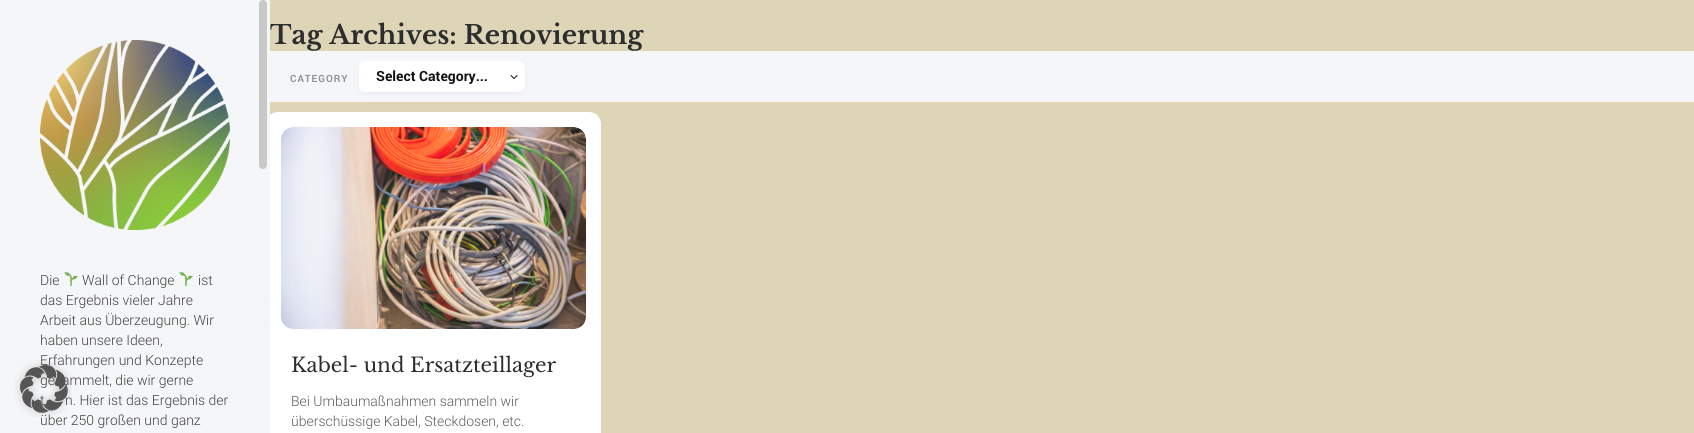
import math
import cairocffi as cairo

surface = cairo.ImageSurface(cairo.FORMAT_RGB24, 1694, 433)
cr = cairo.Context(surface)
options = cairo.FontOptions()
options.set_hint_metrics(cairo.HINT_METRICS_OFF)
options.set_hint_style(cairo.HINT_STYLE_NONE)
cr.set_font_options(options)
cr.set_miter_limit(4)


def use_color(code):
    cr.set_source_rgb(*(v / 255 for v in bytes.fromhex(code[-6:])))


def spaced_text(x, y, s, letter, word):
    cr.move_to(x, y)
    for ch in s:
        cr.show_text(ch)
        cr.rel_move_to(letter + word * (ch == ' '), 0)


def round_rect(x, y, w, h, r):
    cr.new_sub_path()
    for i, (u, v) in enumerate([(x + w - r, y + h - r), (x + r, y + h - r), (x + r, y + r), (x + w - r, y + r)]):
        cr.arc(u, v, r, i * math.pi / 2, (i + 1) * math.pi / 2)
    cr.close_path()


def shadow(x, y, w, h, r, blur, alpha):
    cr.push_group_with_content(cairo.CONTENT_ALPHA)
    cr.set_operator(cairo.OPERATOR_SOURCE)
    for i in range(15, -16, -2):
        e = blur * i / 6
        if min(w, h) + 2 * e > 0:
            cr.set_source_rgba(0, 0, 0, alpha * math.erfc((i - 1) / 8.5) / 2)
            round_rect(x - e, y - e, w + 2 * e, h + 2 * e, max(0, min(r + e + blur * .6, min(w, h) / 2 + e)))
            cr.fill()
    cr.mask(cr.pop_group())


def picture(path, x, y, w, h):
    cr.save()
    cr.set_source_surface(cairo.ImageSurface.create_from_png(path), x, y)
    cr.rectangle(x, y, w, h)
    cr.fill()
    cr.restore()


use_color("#ddd5b5")
cr.paint()
use_color("#ffffff")
round_rect(266, 112, 335, 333, 12)
cr.fill()
use_color("#f5f6f8")
cr.rectangle(0, 0, 270, 433)
cr.fill()
use_color("#c8c8c9")
round_rect(259, 0, 8, 169, 4)
cr.fill()
picture("img1.png", 40, 40, 190, 190)
cr.select_font_face("Roboto Light")
cr.set_font_size(14)
use_color("#424242")
cr.move_to(40, 285)
cr.show_text("Die")
picture("img2.png", 64, 272, 14, 14)
cr.move_to(82, 285)
cr.show_text("Wall of Change")
picture("img2.png", 179, 272, 14, 14)
cr.move_to(198, 285)
cr.show_text("ist")
cr.move_to(40, 305)
cr.show_text("das Ergebnis vieler Jahre")
cr.move_to(40, 325)
cr.show_text("Arbeit aus Überzeugung. Wir")
cr.move_to(40, 345)
cr.show_text("haben unsere Ideen,")
cr.move_to(40, 365)
cr.show_text("Erfahrungen und Konzepte")
cr.move_to(40, 385)
cr.show_text("gesammelt, die wir gerne")
cr.move_to(40, 405)
cr.show_text("t")
cr.move_to(65, 405)
cr.show_text("n. Hier ist das Ergebnis der")
cr.move_to(40, 425)
cr.show_text("über 250 großen und ganz")
cr.select_font_face("Libre Baskerville", cairo.FONT_SLANT_NORMAL, cairo.FONT_WEIGHT_BOLD)
cr.set_font_size(26)
use_color("#2c2d2f")
cr.move_to(270, 44)
cr.show_text("Tag Archives: Renovierung")
use_color("#f5f6f8")
cr.rectangle(270, 51, 1424, 51)
cr.fill()
cr.select_font_face("Roboto", cairo.FONT_SLANT_NORMAL, cairo.FONT_WEIGHT_BOLD)
cr.set_font_size(10)
use_color("#939495")
spaced_text(290, 82, "CATEGORY", 1, 0)
use_color("#929eda")
shadow(359, 63, 166, 31, 6, 2, 0.12)
use_color("#ffffff")
round_rect(359, 61, 166, 31, 6)
cr.fill()
cr.set_font_size(14)
use_color("#111111")
cr.move_to(376, 81)
cr.show_text("Select Category...")
picture("img3.png", 510, 75, 8, 4)
picture("img4.png", 281, 127, 305, 202)
cr.select_font_face("Libre Baskerville")
cr.set_font_size(20)
use_color("#2c2d2f")
cr.move_to(291, 372)
cr.show_text("Kabel- und Ersatzteillager")
cr.select_font_face("Roboto Light")
cr.set_font_size(14)
use_color("#5c5c5c")
cr.move_to(291, 406)
cr.show_text("Bei Umbaumaßnahmen sammeln wir")
cr.move_to(291, 426)
cr.show_text("überschüssige Kabel, Steckdosen, etc.")
picture("img5.png", 15, 360, 57, 57)
surface.write_to_png("result.png")
